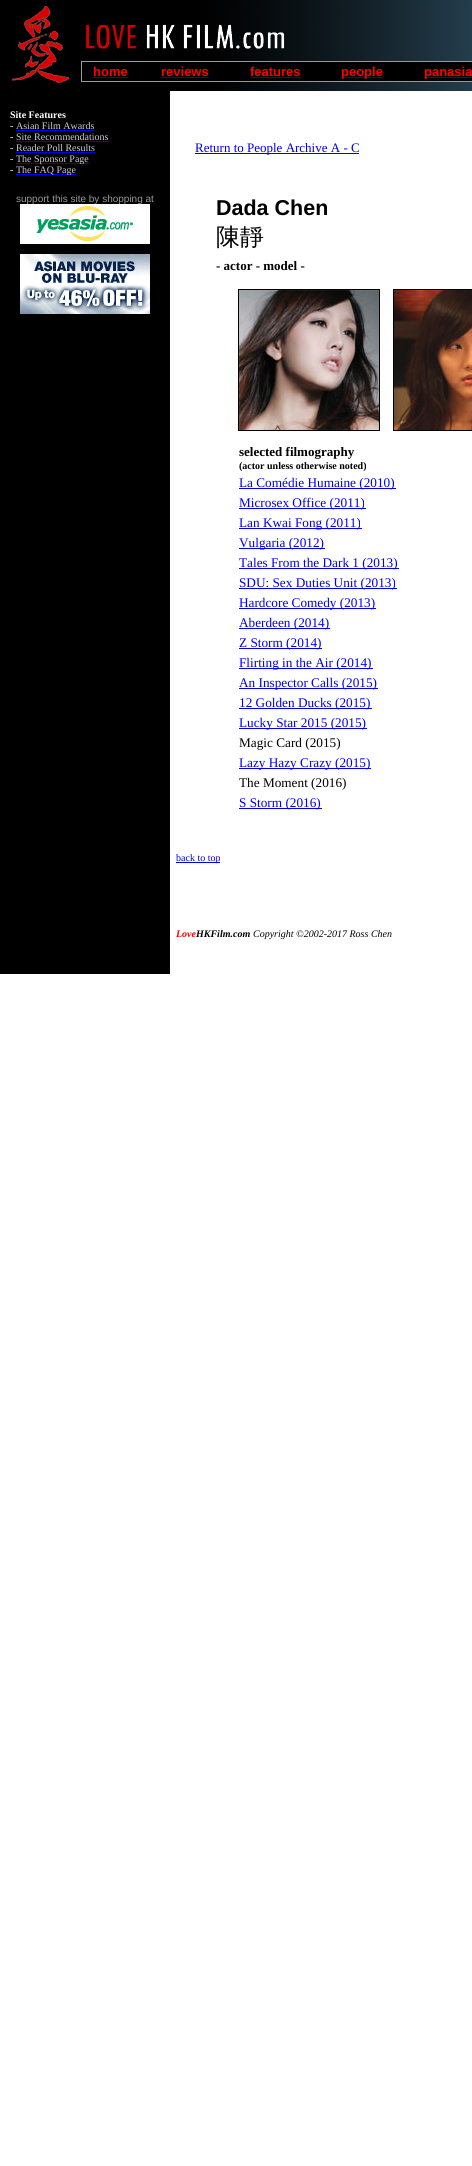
import math
import cairocffi as cairo

surface = cairo.ImageSurface(cairo.FORMAT_RGB24, 472, 2166)
cr = cairo.Context(surface)
options = cairo.FontOptions()
options.set_hint_metrics(cairo.HINT_METRICS_OFF)
options.set_hint_style(cairo.HINT_STYLE_NONE)
cr.set_font_options(options)
cr.set_miter_limit(4)


def use_color(code):
    cr.set_source_rgb(*(v / 255 for v in bytes.fromhex(code[-6:])))


def picture(path, x, y, w, h):
    cr.save()
    cr.set_source_surface(cairo.ImageSurface.create_from_png(path), x, y)
    cr.rectangle(x, y, w, h)
    cr.fill()
    cr.restore()


use_color("#ffffff")
cr.paint()
picture("img1.png", 0, 0, 81, 91)
picture("img2.png", 81, 0, 391, 52)
picture("img3.png", 81, 52, 391, 39)
use_color("#999999")
cr.rectangle(81, 61, 391, 21)
cr.fill()
use_color("#000000")
cr.rectangle(82, 62, 390, 19)
cr.fill()
cr.select_font_face("Liberation Sans", cairo.FONT_SLANT_NORMAL, cairo.FONT_WEIGHT_BOLD)
cr.set_font_size(13)
use_color("#ff0000")
cr.move_to(93, 76)
cr.show_text("home")
use_color("#0000ee")
cr.rectangle(93, 77, 35, 1)
cr.fill()
use_color("#ff0000")
cr.move_to(161, 76)
cr.show_text("reviews")
use_color("#0000ee")
cr.rectangle(161, 77, 48, 1)
cr.fill()
use_color("#ff0000")
cr.move_to(250, 76)
cr.show_text("features")
use_color("#0000ee")
cr.rectangle(250, 77, 51, 1)
cr.fill()
cr.rectangle(341, 77, 42, 1)
cr.fill()
use_color("#ff0000")
cr.move_to(341, 76)
cr.show_text("people")
use_color("#0000ee")
cr.rectangle(424, 77, 48, 1)
cr.fill()
use_color("#ff0000")
cr.move_to(424, 76)
cr.show_text("panasia")
use_color("#000000")
cr.rectangle(0, 91, 170, 883)
cr.fill()
cr.select_font_face("Liberation Serif", cairo.FONT_SLANT_NORMAL, cairo.FONT_WEIGHT_BOLD)
cr.set_font_size(10)
use_color("#ffffff")
cr.move_to(10, 118)
cr.show_text("Site Features")
cr.select_font_face("Liberation Serif")
cr.move_to(10, 129)
cr.show_text("-")
use_color("#0000ee")
cr.rectangle(16, 130, 78, 1)
cr.fill()
use_color("#cccccc")
cr.move_to(16, 129)
cr.show_text("Asian Film Awards")
use_color("#ffffff")
cr.move_to(10, 140)
cr.show_text("-")
use_color("#0000ee")
cr.rectangle(16, 141, 93, 1)
cr.fill()
use_color("#cccccc")
cr.move_to(16, 140)
cr.show_text("Site Recommendations")
use_color("#ffffff")
cr.move_to(10, 151)
cr.show_text("-")
use_color("#0000ee")
cr.rectangle(16, 152, 79, 1)
cr.fill()
use_color("#cccccc")
cr.move_to(16, 151)
cr.show_text("Reader Poll Results")
use_color("#ffffff")
cr.move_to(10, 162)
cr.show_text("-")
use_color("#0000ee")
cr.rectangle(16, 163, 73, 1)
cr.fill()
use_color("#cccccc")
cr.move_to(16, 162)
cr.show_text("The Sponsor Page")
use_color("#ffffff")
cr.move_to(10, 173)
cr.show_text("-")
use_color("#0000ee")
cr.rectangle(16, 174, 60, 1)
cr.fill()
use_color("#cccccc")
cr.move_to(16, 173)
cr.show_text("The FAQ Page")
cr.select_font_face("Liberation Sans")
use_color("#999999")
cr.move_to(16, 202)
cr.show_text("support this site by shopping at")
picture("img4.png", 20, 204, 130, 40)
picture("img5.png", 20, 254, 130, 60)
use_color("#0000ee")
cr.rectangle(195, 153, 164, 1)
cr.fill()
cr.select_font_face("Liberation Serif")
cr.set_font_size(13)
cr.move_to(195, 152)
cr.show_text("Return to People Archive A - C")
cr.select_font_face("Liberation Sans", cairo.FONT_SLANT_NORMAL, cairo.FONT_WEIGHT_BOLD)
cr.set_font_size(21.5)
use_color("#000000")
cr.move_to(216, 215)
cr.show_text("Dada Chen")
cr.select_font_face("WenQuanYi Zen Hei Medium")
cr.set_font_size(24)
cr.move_to(216, 245)
cr.show_text("陳靜")
cr.select_font_face("Liberation Serif", cairo.FONT_SLANT_NORMAL, cairo.FONT_WEIGHT_BOLD)
cr.set_font_size(13)
cr.move_to(216, 270)
cr.show_text("- actor - model -")
cr.rectangle(238.5, 289.5, 141, 141)
cr.set_line_width(1)
cr.stroke()
picture("img6.png", 239, 290, 140, 140)
cr.rectangle(393.5, 289.5, 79, 141)
cr.stroke()
picture("img7.png", 394, 290, 78, 140)
cr.move_to(239, 456)
cr.show_text("selected filmography")
cr.set_font_size(10)
cr.move_to(239, 469)
cr.show_text("(actor unless otherwise noted)")
use_color("#0000ee")
cr.rectangle(239, 488, 157, 1)
cr.fill()
cr.select_font_face("Liberation Serif")
cr.set_font_size(13.25)
cr.move_to(239, 487)
cr.show_text("La Comédie Humaine (2010)")
cr.rectangle(239, 508, 127, 1)
cr.fill()
cr.move_to(239, 507)
cr.show_text("Microsex Office (2011)")
cr.rectangle(239, 528, 123, 1)
cr.fill()
cr.move_to(239, 527)
cr.show_text("Lan Kwai Fong (2011)")
cr.rectangle(239, 548, 86, 1)
cr.fill()
cr.move_to(239, 547)
cr.show_text("Vulgaria (2012)")
cr.rectangle(239, 568, 160, 1)
cr.fill()
cr.move_to(239, 567)
cr.show_text("Tales From the Dark 1 (2013)")
cr.rectangle(239, 588, 158, 1)
cr.fill()
cr.move_to(239, 587)
cr.show_text("SDU: Sex Duties Unit (2013)")
cr.rectangle(239, 608, 137, 1)
cr.fill()
cr.move_to(239, 607)
cr.show_text("Hardcore Comedy (2013)")
cr.rectangle(239, 628, 91, 1)
cr.fill()
cr.move_to(239, 627)
cr.show_text("Aberdeen (2014)")
cr.rectangle(239, 648, 83, 1)
cr.fill()
cr.move_to(239, 647)
cr.show_text("Z Storm (2014)")
cr.rectangle(239, 668, 134, 1)
cr.fill()
cr.move_to(239, 667)
cr.show_text("Flirting in the Air (2014)")
cr.rectangle(239, 688, 139, 1)
cr.fill()
cr.move_to(239, 687)
cr.show_text("An Inspector Calls (2015)")
cr.rectangle(239, 708, 133, 1)
cr.fill()
cr.move_to(239, 707)
cr.show_text("12 Golden Ducks (2015)")
cr.rectangle(239, 728, 128, 1)
cr.fill()
cr.move_to(239, 727)
cr.show_text("Lucky Star 2015 (2015)")
use_color("#000000")
cr.move_to(239, 747)
cr.show_text("Magic Card (2015)")
use_color("#0000ee")
cr.rectangle(239, 768, 132, 1)
cr.fill()
cr.move_to(239, 767)
cr.show_text("Lazy Hazy Crazy (2015)")
use_color("#000000")
cr.move_to(239, 787)
cr.show_text("The Moment (2016)")
use_color("#0000ee")
cr.rectangle(239, 808, 83, 1)
cr.fill()
cr.move_to(239, 807)
cr.show_text("S Storm (2016)")
cr.rectangle(176, 862, 44, 1)
cr.fill()
cr.set_font_size(10)
cr.move_to(176, 861)
cr.show_text("back to top")
cr.select_font_face("Liberation Serif", cairo.FONT_SLANT_ITALIC, cairo.FONT_WEIGHT_BOLD)
use_color("#ff0000")
cr.move_to(176, 937)
cr.show_text("Love")
use_color("#000000")
cr.move_to(196, 937)
cr.show_text("HKFilm.com")
cr.select_font_face("Liberation Serif", cairo.FONT_SLANT_ITALIC)
cr.move_to(253, 937)
cr.show_text("Copyright ©2002-2017 Ross Chen")
surface.write_to_png("result.png")
